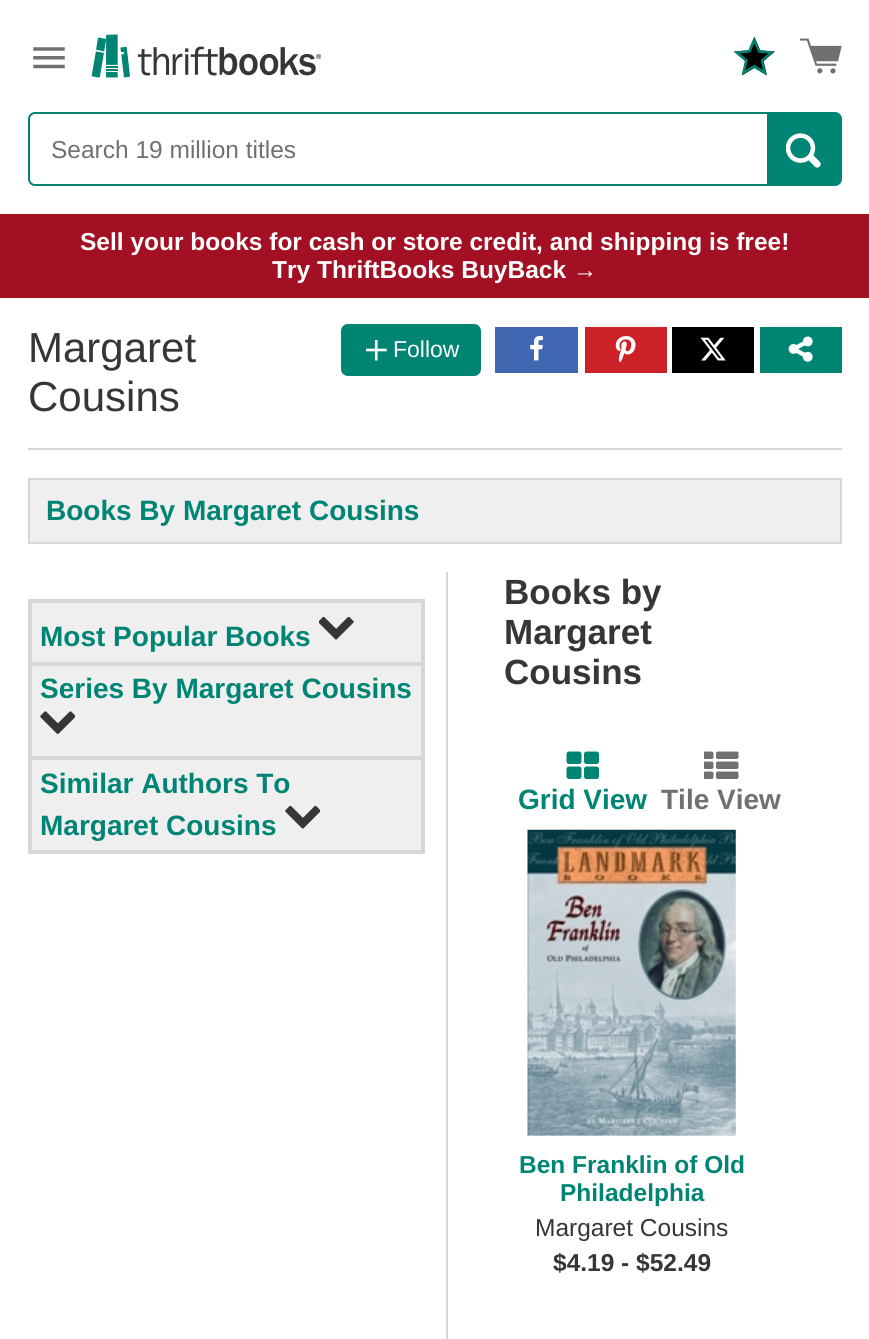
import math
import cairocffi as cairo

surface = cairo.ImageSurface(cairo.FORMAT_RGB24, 869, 1339)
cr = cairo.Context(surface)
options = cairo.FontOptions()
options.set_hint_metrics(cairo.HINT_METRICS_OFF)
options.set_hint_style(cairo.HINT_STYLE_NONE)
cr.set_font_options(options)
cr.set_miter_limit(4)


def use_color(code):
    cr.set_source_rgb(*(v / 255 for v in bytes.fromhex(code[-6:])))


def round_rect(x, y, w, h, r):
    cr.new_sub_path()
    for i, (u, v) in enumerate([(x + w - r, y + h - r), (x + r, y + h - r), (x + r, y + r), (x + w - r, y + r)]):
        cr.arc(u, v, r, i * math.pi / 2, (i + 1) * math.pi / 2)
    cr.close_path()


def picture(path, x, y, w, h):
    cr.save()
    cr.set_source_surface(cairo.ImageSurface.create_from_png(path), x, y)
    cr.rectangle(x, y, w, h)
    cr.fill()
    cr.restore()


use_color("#ffffff")
cr.paint()
picture("img1.png", 33, 47, 32, 22)
picture("img2.png", 91, 34, 231, 44)
picture("img3.png", 733, 36, 42, 40)
picture("img4.png", 800, 38, 42, 36)
round_rect(29, 113, 812, 72, 6)
use_color("#008575")
cr.stroke()
use_color("#ffffff")
cr.new_path()
cr.move_to(37, 114)
cr.line_to(767, 114)
cr.line_to(767, 184)
cr.line_to(37, 184)
cr.curve_to(33, 184, 30, 181, 30, 177)
cr.line_to(30, 121)
cr.curve_to(30, 117, 33, 114, 37, 114)
cr.close_path()
cr.fill()
cr.select_font_face("Liberation Sans")
cr.set_font_size(24.5)
use_color("#707070")
cr.move_to(51, 158)
cr.show_text("Search 19 million titles")
use_color("#008575")
cr.rectangle(767, 114, 73, 70)
cr.fill()
picture("img5.png", 786, 133, 35, 35)
use_color("#a31023")
cr.rectangle(0, 214, 869, 84)
cr.fill()
cr.select_font_face("Liberation Sans", cairo.FONT_SLANT_NORMAL, cairo.FONT_WEIGHT_BOLD)
use_color("#ffffff")
cr.move_to(80, 250)
cr.show_text("Sell your books for cash or store credit, and shipping is free!")
cr.move_to(272, 278)
cr.show_text("Try ThriftBooks BuyBack →")
use_color("#d7d7d7")
cr.rectangle(28, 448, 814, 2)
cr.fill()
cr.select_font_face("Liberation Sans")
cr.set_font_size(42)
use_color("#363636")
cr.move_to(28, 362)
cr.show_text("Margaret")
cr.move_to(28, 411)
cr.show_text("Cousins")
use_color("#008575")
round_rect(342, 325, 138, 50, 6)
cr.fill_preserve()
cr.stroke()
picture("img6.png", 366, 340, 21, 21)
cr.set_font_size(23)
use_color("#ffffff")
cr.move_to(393, 357)
cr.show_text("Follow")
use_color("#4267b2")
cr.rectangle(495, 327, 83, 46)
cr.fill()
picture("img7.png", 530, 336, 13, 25)
use_color("#cc2127")
cr.rectangle(585, 327, 82, 46)
cr.fill()
picture("img8.png", 615, 336, 21, 26)
use_color("#000000")
cr.rectangle(672, 327, 82, 46)
cr.fill()
picture("img9.png", 700, 337, 26, 24)
use_color("#008575")
cr.rectangle(760, 327, 82, 46)
cr.fill()
picture("img10.png", 788, 336, 25, 26)
use_color("#efefef")
cr.rectangle(29, 479, 812, 64)
cr.fill_preserve()
use_color("#d7d7d7")
cr.stroke()
cr.select_font_face("Liberation Sans", cairo.FONT_SLANT_NORMAL, cairo.FONT_WEIGHT_BOLD)
cr.set_font_size(28)
use_color("#008575")
cr.move_to(46, 520)
cr.show_text("Books By Margaret Cousins")
use_color("#d7d7d7")
cr.rectangle(446, 572, 2, 767)
cr.fill()
use_color("#efefef")
cr.rectangle(30, 601, 393, 251)
cr.fill_preserve()
use_color("#d7d7d7")
cr.set_line_width(4)
cr.stroke()
cr.rectangle(32, 662, 390, 4)
cr.fill()
use_color("#008575")
cr.move_to(40, 646)
cr.show_text("Most Popular Books")
picture("img11.png", 319, 616, 35, 24)
use_color("#d7d7d7")
cr.rectangle(32, 756, 390, 4)
cr.fill()
use_color("#008575")
cr.move_to(40, 698)
cr.show_text("Series By Margaret Cousins")
picture("img12.png", 40, 711, 35, 23)
cr.move_to(40, 793)
cr.show_text("Similar Authors To")
cr.move_to(40, 835)
cr.show_text("Margaret Cousins")
picture("img13.png", 285, 805, 35, 24)
cr.set_font_size(35)
use_color("#363636")
cr.move_to(504, 604)
cr.show_text("Books by")
cr.move_to(504, 644)
cr.show_text("Margaret")
cr.move_to(504, 684)
cr.show_text("Cousins")
picture("img14.png", 566, 751, 33, 28)
cr.set_font_size(28)
use_color("#008575")
cr.move_to(518, 809)
cr.show_text("Grid View")
picture("img15.png", 704, 751, 35, 28)
use_color("#707070")
cr.move_to(661, 809)
cr.show_text("Tile View")
use_color("#efefef")
cr.rectangle(527, 830, 208, 306)
cr.fill()
picture("img16.png", 527, 829, 209, 307)
cr.set_font_size(24.5)
use_color("#008575")
cr.move_to(519, 1173)
cr.show_text("Ben Franklin of Old")
cr.move_to(560, 1201)
cr.show_text("Philadelphia")
cr.select_font_face("Liberation Sans")
use_color("#363636")
cr.move_to(535, 1236)
cr.show_text("Margaret Cousins")
cr.select_font_face("Liberation Sans", cairo.FONT_SLANT_NORMAL, cairo.FONT_WEIGHT_BOLD)
cr.move_to(553, 1271)
cr.show_text("$4.19 - $52.49")
surface.write_to_png("result.png")
